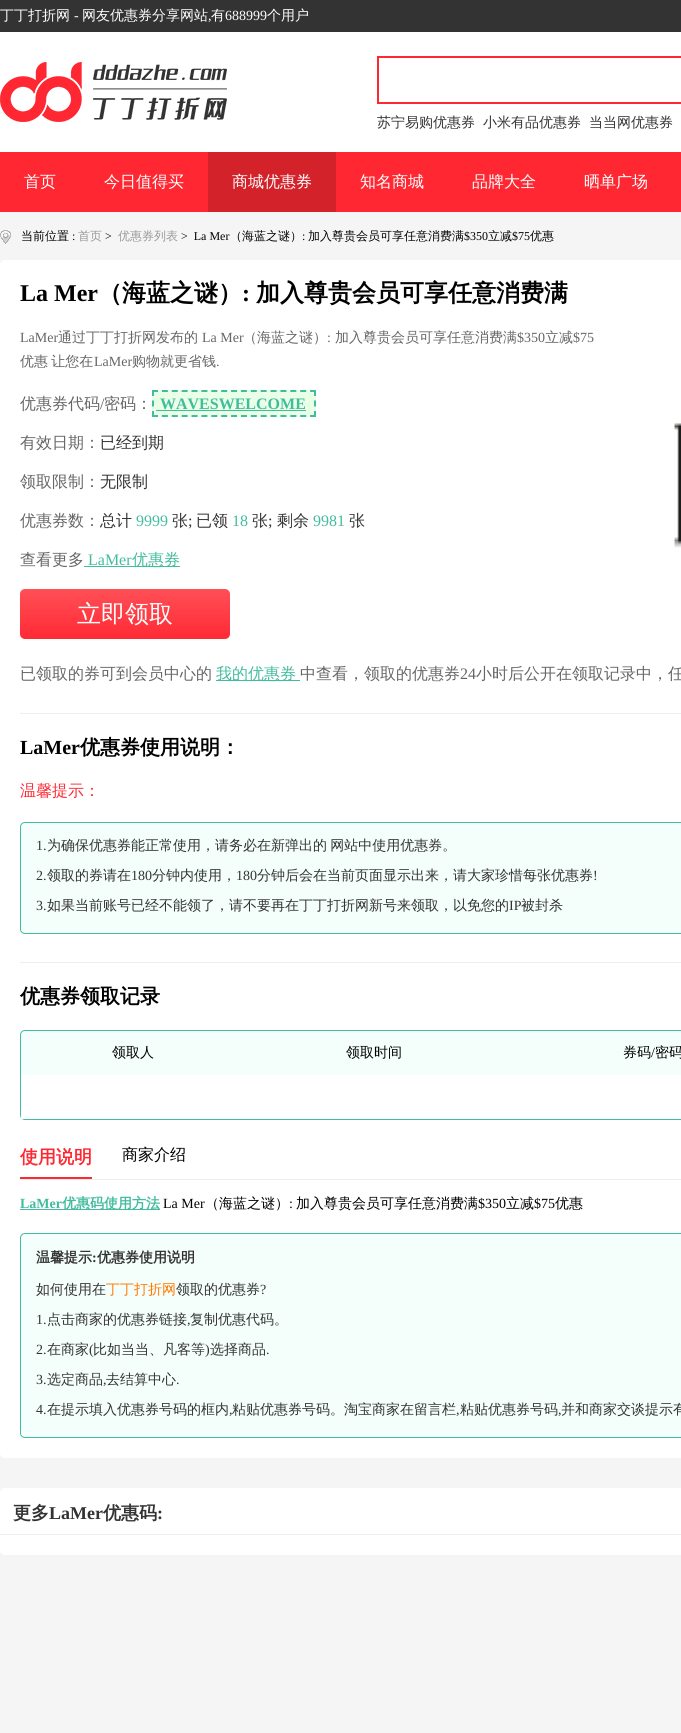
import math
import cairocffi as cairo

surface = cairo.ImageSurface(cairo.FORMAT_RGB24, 681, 1733)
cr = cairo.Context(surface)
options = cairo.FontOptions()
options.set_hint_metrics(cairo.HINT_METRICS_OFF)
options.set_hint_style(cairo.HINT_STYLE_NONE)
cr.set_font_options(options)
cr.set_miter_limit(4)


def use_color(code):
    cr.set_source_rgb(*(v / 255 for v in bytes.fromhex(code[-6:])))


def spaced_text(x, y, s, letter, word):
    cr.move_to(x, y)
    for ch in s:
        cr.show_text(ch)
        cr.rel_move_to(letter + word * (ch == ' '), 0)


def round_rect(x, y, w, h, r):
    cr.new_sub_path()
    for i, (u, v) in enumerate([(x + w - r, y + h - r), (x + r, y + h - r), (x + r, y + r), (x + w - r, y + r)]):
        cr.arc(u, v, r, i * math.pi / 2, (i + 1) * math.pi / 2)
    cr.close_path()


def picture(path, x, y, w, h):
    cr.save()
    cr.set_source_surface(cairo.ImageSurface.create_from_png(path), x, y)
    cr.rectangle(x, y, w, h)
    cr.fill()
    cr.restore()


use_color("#f5f5f5")
cr.paint()
use_color("#333333")
cr.rectangle(0, 0, 681, 32)
cr.fill()
cr.select_font_face("WenQuanYi Zen Hei Medium")
cr.set_font_size(14)
use_color("#ffffff")
cr.move_to(0, 20)
cr.show_text("丁丁打折网")
cr.select_font_face("Liberation Serif")
cr.move_to(74, 20)
cr.show_text("-")
cr.select_font_face("WenQuanYi Zen Hei Medium")
cr.move_to(82, 20)
cr.show_text("网友优惠券分享网站")
cr.move_to(211, 20)
cr.show_text("有")
cr.select_font_face("Liberation Serif")
cr.move_to(225, 20)
cr.show_text("688999")
cr.select_font_face("WenQuanYi Zen Hei Medium")
cr.move_to(267, 20)
cr.show_text("个用户")
cr.select_font_face("Liberation Serif")
cr.move_to(208, 20)
cr.show_text(",")
cr.rectangle(0, 32, 681, 120)
cr.fill()
picture("img1.png", 0, 62, 227, 60)
cr.rectangle(378, 57, 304, 46)
use_color("#ff2832")
cr.stroke()
cr.select_font_face("WenQuanYi Zen Hei Medium")
use_color("#333333")
cr.move_to(377, 127)
cr.show_text("苏宁易购优惠券")
cr.move_to(483, 127)
cr.show_text("小米有品优惠券")
cr.move_to(589, 127)
cr.show_text("当当网优惠券")
use_color("#ff2832")
cr.rectangle(0, 152, 681, 60)
cr.fill()
cr.set_font_size(16)
use_color("#ffffff")
cr.move_to(24, 187)
cr.show_text("首页")
cr.move_to(104, 187)
cr.show_text("今日值得买")
use_color("#d4222a")
cr.rectangle(208, 152, 128, 60)
cr.fill()
use_color("#ffffff")
cr.move_to(232, 187)
cr.show_text("商城优惠券")
cr.move_to(360, 187)
cr.show_text("知名商城")
cr.move_to(472, 187)
cr.show_text("品牌大全")
cr.move_to(584, 187)
cr.show_text("晒单广场")
picture("img2.png", 0, 230, 11, 14)
cr.set_font_size(12)
use_color("#000000")
cr.move_to(21, 240)
cr.show_text("当前位置")
cr.select_font_face("Liberation Serif")
cr.move_to(72, 240)
cr.show_text(":")
cr.select_font_face("WenQuanYi Zen Hei Medium")
use_color("#999999")
cr.move_to(78, 240)
cr.show_text("首页")
cr.select_font_face("Liberation Serif")
use_color("#000000")
cr.move_to(105, 240)
cr.show_text(">")
cr.select_font_face("WenQuanYi Zen Hei Medium")
use_color("#999999")
cr.move_to(118, 240)
cr.show_text("优惠券列表")
cr.select_font_face("Liberation Serif")
use_color("#000000")
cr.move_to(181, 240)
cr.show_text(">  La Mer")
cr.select_font_face("WenQuanYi Zen Hei Medium")
cr.move_to(230, 240)
cr.show_text("（海蓝之谜）")
cr.select_font_face("Liberation Serif")
cr.move_to(302, 240)
cr.show_text(":")
cr.select_font_face("WenQuanYi Zen Hei Medium")
cr.move_to(308, 240)
cr.show_text("加入尊贵会员可享任意消费满")
cr.select_font_face("Liberation Serif")
cr.move_to(464, 240)
cr.show_text("$350")
cr.select_font_face("WenQuanYi Zen Hei Medium")
cr.move_to(488, 240)
cr.show_text("立减")
cr.select_font_face("Liberation Serif")
cr.move_to(512, 240)
cr.show_text("$75")
cr.select_font_face("WenQuanYi Zen Hei Medium")
cr.move_to(530, 240)
cr.show_text("优惠")
use_color("#ffffff")
round_rect(0, 260, 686, 1198, 5)
cr.fill()
cr.select_font_face("Liberation Serif", cairo.FONT_SLANT_NORMAL, cairo.FONT_WEIGHT_BOLD)
cr.set_font_size(24)
use_color("#000000")
cr.move_to(20, 301)
cr.show_text("La Mer")
cr.select_font_face("WenQuanYi Zen Hei", cairo.FONT_SLANT_NORMAL, cairo.FONT_WEIGHT_BOLD)
cr.move_to(98, 301)
cr.show_text("（海蓝之谜）")
cr.select_font_face("Liberation Serif", cairo.FONT_SLANT_NORMAL, cairo.FONT_WEIGHT_BOLD)
cr.move_to(242, 301)
cr.show_text(":")
cr.select_font_face("WenQuanYi Zen Hei", cairo.FONT_SLANT_NORMAL, cairo.FONT_WEIGHT_BOLD)
cr.move_to(256, 301)
cr.show_text("加入尊贵会员可享任意消费满")
cr.select_font_face("Liberation Serif")
cr.set_font_size(14)
use_color("#666666")
cr.move_to(20, 342)
cr.show_text("LaMer")
cr.select_font_face("WenQuanYi Zen Hei Medium")
cr.move_to(58, 342)
cr.show_text("通过丁丁打折网发布的")
cr.select_font_face("Liberation Serif")
cr.move_to(202, 342)
cr.show_text("La Mer")
cr.select_font_face("WenQuanYi Zen Hei Medium")
cr.move_to(243, 342)
cr.show_text("（海蓝之谜）")
cr.select_font_face("Liberation Serif")
cr.move_to(327, 342)
cr.show_text(":")
cr.select_font_face("WenQuanYi Zen Hei Medium")
cr.move_to(335, 342)
cr.show_text("加入尊贵会员可享任意消费满")
cr.select_font_face("Liberation Serif")
cr.move_to(517, 342)
cr.show_text("$350")
cr.select_font_face("WenQuanYi Zen Hei Medium")
cr.move_to(545, 342)
cr.show_text("立减")
cr.select_font_face("Liberation Serif")
cr.move_to(573, 342)
cr.show_text("$75")
cr.select_font_face("WenQuanYi Zen Hei Medium")
spaced_text(20, 366, "优惠 让您在", 0, -1)
cr.select_font_face("Liberation Serif")
cr.move_to(94, 366)
cr.show_text("LaMer")
cr.select_font_face("WenQuanYi Zen Hei Medium")
cr.move_to(132, 366)
cr.show_text("购物就更省钱")
cr.select_font_face("Liberation Serif")
cr.move_to(216, 366)
cr.show_text(".")
cr.select_font_face("WenQuanYi Zen Hei Medium")
cr.set_font_size(16)
cr.move_to(20, 409)
cr.show_text("优惠券代码")
cr.select_font_face("Liberation Serif")
cr.move_to(100, 409)
cr.show_text("/")
cr.select_font_face("WenQuanYi Zen Hei Medium")
cr.move_to(104, 409)
cr.show_text("密码：")
use_color("#e9ffe6")
cr.rectangle(152, 390, 164, 27)
cr.fill()
cr.select_font_face("Liberation Serif", cairo.FONT_SLANT_NORMAL, cairo.FONT_WEIGHT_BOLD)
use_color("#42bc9e")
cr.move_to(160, 409)
cr.show_text("WAVESWELCOME")
cr.new_path()
cr.move_to(152, 391)
cr.line_to(316, 391)
cr.set_dash([6, 3.88])
cr.stroke()
cr.new_path()
cr.move_to(315, 390)
cr.line_to(315, 396)
cr.move_to(315, 400.5)
cr.line_to(315, 406.5)
cr.move_to(315, 411)
cr.line_to(315, 417)
cr.set_dash([])
cr.stroke()
cr.new_path()
cr.move_to(152, 416)
cr.line_to(316, 416)
cr.set_dash([6, 3.88])
cr.stroke()
cr.new_path()
cr.move_to(153, 390)
cr.line_to(153, 396)
cr.move_to(153, 400.5)
cr.line_to(153, 406.5)
cr.move_to(153, 411)
cr.line_to(153, 417)
cr.set_dash([])
cr.stroke()
cr.rectangle(156, 410, 150, 1)
cr.fill()
cr.select_font_face("WenQuanYi Zen Hei Medium")
use_color("#666666")
cr.move_to(20, 448)
cr.show_text("有效日期：")
use_color("#333333")
cr.move_to(100, 448)
cr.show_text("已经到期")
use_color("#666666")
cr.move_to(20, 487)
cr.show_text("领取限制：")
use_color("#333333")
cr.move_to(100, 487)
cr.show_text("无限制")
use_color("#666666")
cr.move_to(20, 526)
cr.show_text("优惠券数：")
use_color("#333333")
cr.move_to(100, 526)
cr.show_text("总计")
cr.select_font_face("Liberation Serif")
use_color("#42bc9e")
cr.move_to(136, 526)
cr.show_text("9999")
cr.select_font_face("WenQuanYi Zen Hei Medium")
use_color("#333333")
cr.move_to(172, 526)
cr.show_text("张")
cr.select_font_face("Liberation Serif")
cr.move_to(188, 526)
cr.show_text(";")
cr.select_font_face("WenQuanYi Zen Hei Medium")
cr.move_to(196, 526)
cr.show_text("已领")
cr.select_font_face("Liberation Serif")
use_color("#42bc9e")
cr.move_to(232, 526)
cr.show_text("18")
cr.select_font_face("WenQuanYi Zen Hei Medium")
use_color("#333333")
cr.move_to(252, 526)
cr.show_text("张")
cr.select_font_face("Liberation Serif")
cr.move_to(268, 526)
cr.show_text(";")
cr.select_font_face("WenQuanYi Zen Hei Medium")
cr.move_to(277, 526)
cr.show_text("剩余")
cr.select_font_face("Liberation Serif")
use_color("#42bc9e")
cr.move_to(313, 526)
cr.show_text("9981")
cr.select_font_face("WenQuanYi Zen Hei Medium")
use_color("#333333")
cr.move_to(349, 526)
cr.show_text("张")
use_color("#666666")
cr.move_to(20, 565)
cr.show_text("查看更多")
cr.select_font_face("Liberation Serif")
use_color("#42bc9e")
cr.move_to(88, 565)
cr.show_text("LaMer")
cr.rectangle(84, 566, 96, 1)
cr.fill()
cr.select_font_face("WenQuanYi Zen Hei Medium")
cr.move_to(132, 565)
cr.show_text("优惠券")
gradient = cairo.LinearGradient(125, 589, 125, 639)
gradient.add_color_stop_rgba(0, 1, 0.31, 0.341, 1)
gradient.add_color_stop_rgba(1, 1, 0.165, 0.204, 1)
cr.set_source(gradient)
round_rect(20, 589, 210, 50, 5)
cr.fill()
cr.set_font_size(24)
use_color("#ffffff")
cr.move_to(77, 622)
cr.show_text("立即领取")
picture("img3.png", 674, 423, 7, 125)
cr.set_font_size(16)
use_color("#666666")
cr.move_to(20, 679)
cr.show_text("已领取的券可到会员中心的")
use_color("#42bc9e")
cr.rectangle(216, 680, 84, 1)
cr.fill()
cr.move_to(216, 679)
cr.show_text("我的优惠券")
use_color("#666666")
cr.move_to(300, 679)
cr.show_text("中查看，领取的优惠券")
cr.select_font_face("Liberation Serif")
cr.move_to(460, 679)
cr.show_text("24")
cr.select_font_face("WenQuanYi Zen Hei Medium")
cr.move_to(476, 679)
cr.show_text("小时后公开在领取记录中，任")
use_color("#eeeeee")
cr.rectangle(20, 713, 661, 1)
cr.fill()
cr.select_font_face("Liberation Serif", cairo.FONT_SLANT_NORMAL, cairo.FONT_WEIGHT_BOLD)
cr.set_font_size(20)
use_color("#000000")
cr.move_to(20, 754)
cr.show_text("LaMer")
cr.select_font_face("WenQuanYi Zen Hei", cairo.FONT_SLANT_NORMAL, cairo.FONT_WEIGHT_BOLD)
cr.move_to(80, 754)
cr.show_text("优惠券使用说明：")
cr.select_font_face("WenQuanYi Zen Hei Medium")
cr.set_font_size(16)
use_color("#ff2832")
cr.move_to(20, 796)
cr.show_text("温馨提示：")
use_color("#f4fffc")
round_rect(20.5, 822.5, 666, 111, 4.5)
cr.fill_preserve()
use_color("#42bc9e")
cr.set_line_width(1)
cr.stroke()
cr.select_font_face("Liberation Serif")
cr.set_font_size(14)
use_color("#333333")
cr.move_to(36, 850)
cr.show_text("1.")
cr.select_font_face("WenQuanYi Zen Hei Medium")
spaced_text(47, 850, "为确保优惠券能正常使用，请务必在新弹出的 网站中使用优惠券。", 0, -1)
cr.select_font_face("Liberation Serif")
cr.move_to(36, 880)
cr.show_text("2.")
cr.select_font_face("WenQuanYi Zen Hei Medium")
cr.move_to(47, 880)
cr.show_text("领取的券请在")
cr.select_font_face("Liberation Serif")
cr.move_to(131, 880)
cr.show_text("180")
cr.select_font_face("WenQuanYi Zen Hei Medium")
cr.move_to(152, 880)
cr.show_text("分钟内使用，")
cr.select_font_face("Liberation Serif")
cr.move_to(236, 880)
cr.show_text("180")
cr.select_font_face("WenQuanYi Zen Hei Medium")
cr.move_to(257, 880)
cr.show_text("分钟后会在当前页面显示出来，请大家珍惜每张优惠券")
cr.select_font_face("Liberation Serif")
cr.move_to(593, 880)
cr.show_text("!")
cr.move_to(36, 910)
cr.show_text("3.")
cr.select_font_face("WenQuanYi Zen Hei Medium")
cr.move_to(47, 910)
cr.show_text("如果当前账号已经不能领了，请不要再在丁丁打折网新号来领取，以免您的")
cr.select_font_face("Liberation Serif")
cr.move_to(509, 910)
cr.show_text("IP")
cr.select_font_face("WenQuanYi Zen Hei Medium")
cr.move_to(521, 910)
cr.show_text("被封杀")
use_color("#eeeeee")
cr.rectangle(20, 962, 661, 1)
cr.fill()
cr.select_font_face("WenQuanYi Zen Hei", cairo.FONT_SLANT_NORMAL, cairo.FONT_WEIGHT_BOLD)
cr.set_font_size(20)
use_color("#000000")
cr.move_to(20, 1003)
cr.show_text("优惠券领取记录")
use_color("#f4fffc")
round_rect(20.5, 1030.5, 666, 89, 4.5)
cr.fill_preserve()
use_color("#42bc9e")
cr.stroke()
cr.select_font_face("WenQuanYi Zen Hei Medium")
cr.set_font_size(14)
use_color("#000000")
cr.move_to(112, 1057)
cr.show_text("领取人")
cr.move_to(346, 1057)
cr.show_text("领取时间")
cr.move_to(623, 1057)
cr.show_text("券码")
cr.select_font_face("Liberation Serif")
cr.move_to(651, 1057)
cr.show_text("/")
cr.select_font_face("WenQuanYi Zen Hei Medium")
cr.move_to(655, 1057)
cr.show_text("密码")
use_color("#ffffff")
cr.rectangle(21, 1075, 660, 44)
cr.fill()
use_color("#eeeeee")
cr.rectangle(20, 1179, 661, 1)
cr.fill()
use_color("#ff2832")
cr.rectangle(20, 1177, 72, 2)
cr.fill()
cr.select_font_face("WenQuanYi Zen Hei", cairo.FONT_SLANT_NORMAL, cairo.FONT_WEIGHT_BOLD)
cr.set_font_size(18)
cr.move_to(20, 1163)
cr.show_text("使用说明")
cr.select_font_face("WenQuanYi Zen Hei Medium")
cr.set_font_size(16)
use_color("#000000")
cr.move_to(122, 1160)
cr.show_text("商家介绍")
cr.select_font_face("Liberation Serif", cairo.FONT_SLANT_NORMAL, cairo.FONT_WEIGHT_BOLD)
cr.set_font_size(14)
use_color("#42bc9e")
cr.move_to(20, 1208)
cr.show_text("LaMer")
cr.rectangle(20, 1209, 140, 1)
cr.fill()
cr.select_font_face("WenQuanYi Zen Hei", cairo.FONT_SLANT_NORMAL, cairo.FONT_WEIGHT_BOLD)
cr.move_to(62, 1208)
cr.show_text("优惠码使用方法")
cr.select_font_face("Liberation Serif")
use_color("#000000")
cr.move_to(163, 1208)
cr.show_text("La Mer")
cr.select_font_face("WenQuanYi Zen Hei Medium")
cr.move_to(205, 1208)
cr.show_text("（海蓝之谜）")
cr.select_font_face("Liberation Serif")
cr.move_to(289, 1208)
cr.show_text(":")
cr.select_font_face("WenQuanYi Zen Hei Medium")
cr.move_to(296, 1208)
cr.show_text("加入尊贵会员可享任意消费满")
cr.select_font_face("Liberation Serif")
cr.move_to(478, 1208)
cr.show_text("$350")
cr.select_font_face("WenQuanYi Zen Hei Medium")
cr.move_to(506, 1208)
cr.show_text("立减")
cr.select_font_face("Liberation Serif")
cr.move_to(534, 1208)
cr.show_text("$75")
cr.select_font_face("WenQuanYi Zen Hei Medium")
cr.move_to(555, 1208)
cr.show_text("优惠")
use_color("#f4fffc")
round_rect(20.5, 1233.5, 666, 204, 4.5)
cr.fill_preserve()
use_color("#42bc9e")
cr.stroke()
cr.select_font_face("WenQuanYi Zen Hei", cairo.FONT_SLANT_NORMAL, cairo.FONT_WEIGHT_BOLD)
use_color("#333333")
cr.move_to(36, 1262)
cr.show_text("温馨提示")
cr.select_font_face("Liberation Serif", cairo.FONT_SLANT_NORMAL, cairo.FONT_WEIGHT_BOLD)
cr.move_to(92, 1262)
cr.show_text(":")
cr.select_font_face("WenQuanYi Zen Hei", cairo.FONT_SLANT_NORMAL, cairo.FONT_WEIGHT_BOLD)
cr.move_to(97, 1262)
cr.show_text("优惠券使用说明")
cr.select_font_face("WenQuanYi Zen Hei Medium")
cr.move_to(36, 1294)
cr.show_text("如何使用在")
use_color("#ff7800")
cr.move_to(106, 1294)
cr.show_text("丁丁打折网")
use_color("#333333")
cr.move_to(176, 1294)
cr.show_text("领取的优惠券")
cr.select_font_face("Liberation Serif")
cr.move_to(260, 1294)
cr.show_text("?")
cr.move_to(36, 1324)
cr.show_text("1.")
cr.select_font_face("WenQuanYi Zen Hei Medium")
cr.move_to(47, 1324)
cr.show_text("点击商家的优惠券链接")
cr.select_font_face("Liberation Serif")
cr.move_to(187, 1324)
cr.show_text(",")
cr.select_font_face("WenQuanYi Zen Hei Medium")
cr.move_to(190, 1324)
cr.show_text("复制优惠代码。")
cr.select_font_face("Liberation Serif")
cr.move_to(36, 1354)
cr.show_text("2.")
cr.select_font_face("WenQuanYi Zen Hei Medium")
cr.move_to(47, 1354)
cr.show_text("在商家")
cr.select_font_face("Liberation Serif")
cr.move_to(89, 1354)
cr.show_text("(")
cr.select_font_face("WenQuanYi Zen Hei Medium")
cr.move_to(93, 1354)
cr.show_text("比如当当、凡客等")
cr.select_font_face("Liberation Serif")
cr.move_to(205, 1354)
cr.show_text(")")
cr.select_font_face("WenQuanYi Zen Hei Medium")
cr.move_to(210, 1354)
cr.show_text("选择商品")
cr.select_font_face("Liberation Serif")
cr.move_to(266, 1354)
cr.show_text(".")
cr.move_to(36, 1384)
cr.show_text("3.")
cr.select_font_face("WenQuanYi Zen Hei Medium")
cr.move_to(47, 1384)
cr.show_text("选定商品")
cr.select_font_face("Liberation Serif")
cr.move_to(103, 1384)
cr.show_text(",")
cr.select_font_face("WenQuanYi Zen Hei Medium")
cr.move_to(106, 1384)
cr.show_text("去结算中心")
cr.select_font_face("Liberation Serif")
cr.move_to(176, 1384)
cr.show_text(".")
cr.move_to(36, 1414)
cr.show_text("4.")
cr.select_font_face("WenQuanYi Zen Hei Medium")
cr.move_to(47, 1414)
cr.show_text("在提示填入优惠券号码的框内")
cr.select_font_face("Liberation Serif")
cr.move_to(229, 1414)
cr.show_text(",")
cr.select_font_face("WenQuanYi Zen Hei Medium")
cr.move_to(232, 1414)
cr.show_text("粘贴优惠券号码。淘宝商家在留言栏")
cr.select_font_face("Liberation Serif")
cr.move_to(456, 1414)
cr.show_text(",")
cr.select_font_face("WenQuanYi Zen Hei Medium")
cr.move_to(460, 1414)
cr.show_text("粘贴优惠券号码")
cr.select_font_face("Liberation Serif")
cr.move_to(558, 1414)
cr.show_text(",")
cr.select_font_face("WenQuanYi Zen Hei Medium")
cr.move_to(561, 1414)
cr.show_text("并和商家交谈提示有")
use_color("#ffffff")
round_rect(0, 1488, 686, 67, 5)
cr.fill()
use_color("#eeeeee")
cr.rectangle(0, 1534, 681, 1)
cr.fill()
cr.select_font_face("WenQuanYi Zen Hei", cairo.FONT_SLANT_NORMAL, cairo.FONT_WEIGHT_BOLD)
cr.set_font_size(18)
use_color("#333333")
cr.move_to(13, 1519)
cr.show_text("更多")
cr.select_font_face("Liberation Serif", cairo.FONT_SLANT_NORMAL, cairo.FONT_WEIGHT_BOLD)
cr.move_to(49, 1519)
cr.show_text("LaMer")
cr.select_font_face("WenQuanYi Zen Hei", cairo.FONT_SLANT_NORMAL, cairo.FONT_WEIGHT_BOLD)
cr.move_to(103, 1519)
cr.show_text("优惠码")
cr.select_font_face("Liberation Serif", cairo.FONT_SLANT_NORMAL, cairo.FONT_WEIGHT_BOLD)
cr.move_to(157, 1519)
cr.show_text(":")
surface.write_to_png("result.png")
